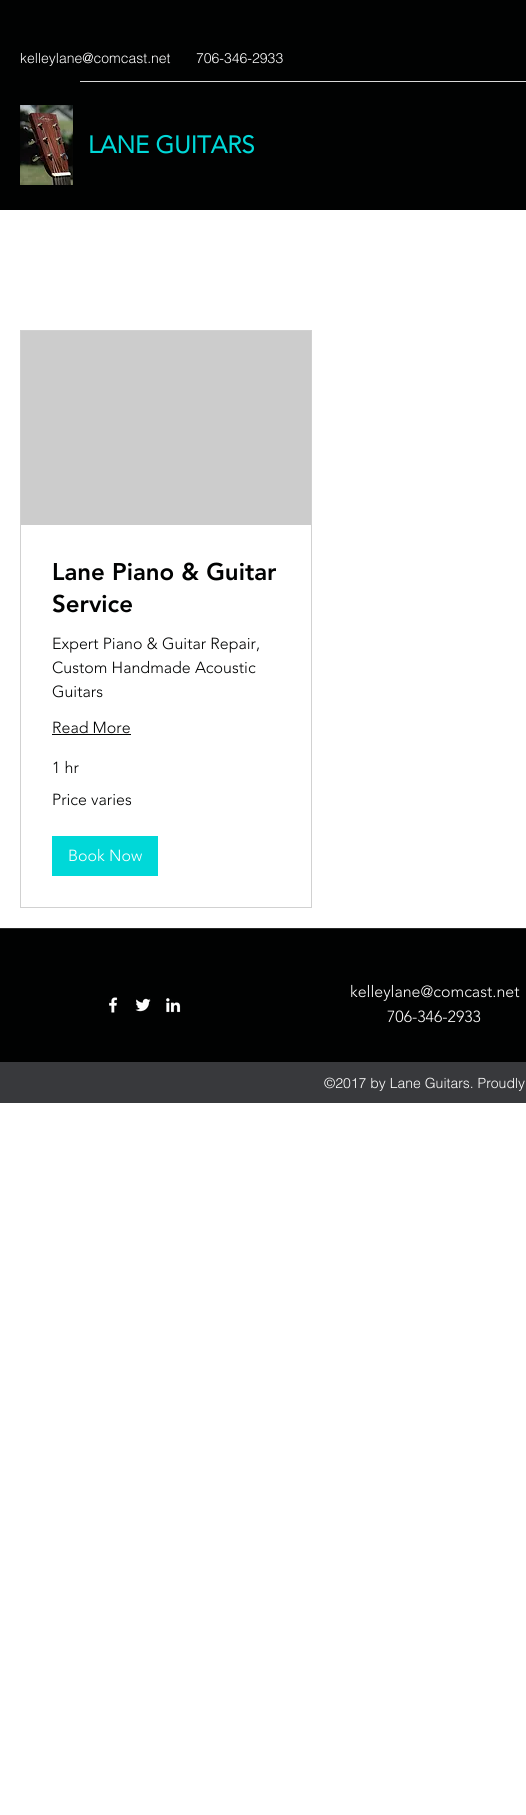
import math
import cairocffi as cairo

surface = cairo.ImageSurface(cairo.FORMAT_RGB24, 526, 1815)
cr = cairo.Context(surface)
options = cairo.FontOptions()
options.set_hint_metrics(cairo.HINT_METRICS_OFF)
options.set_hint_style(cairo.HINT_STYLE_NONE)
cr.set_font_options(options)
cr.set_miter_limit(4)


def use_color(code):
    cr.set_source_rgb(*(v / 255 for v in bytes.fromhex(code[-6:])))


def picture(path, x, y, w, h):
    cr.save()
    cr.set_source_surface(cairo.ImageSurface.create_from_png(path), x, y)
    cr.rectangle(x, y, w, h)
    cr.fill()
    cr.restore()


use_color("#ffffff")
cr.paint()
use_color("#010202")
cr.rectangle(0, 0, 526, 210)
cr.fill()
cr.select_font_face("helvetica Light")
cr.set_font_size(14)
use_color("#ffffff")
cr.move_to(20, 63)
cr.show_text("kelleylane@comcast.net")
cr.move_to(196, 63)
cr.show_text("706-346-2933")
use_color("#d9d9d9")
cr.rectangle(80, 81, 446, 1)
cr.fill()
picture("img1.png", 20, 105, 53, 80)
cr.select_font_face("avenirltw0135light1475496", cairo.FONT_SLANT_NORMAL, cairo.FONT_WEIGHT_BOLD)
cr.set_font_size(24)
use_color("#00d8d8")
cr.move_to(88, 153)
cr.show_text("LANE GUITARS")
cr.rectangle(20.5, 330.5, 291, 577)
use_color("#d1d1d1")
cr.set_line_width(1)
cr.stroke()
use_color("#cccccc")
cr.rectangle(21, 331, 290, 194)
cr.fill()
cr.select_font_face("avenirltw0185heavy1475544 Black")
use_color("#010202")
cr.move_to(52, 580)
cr.show_text("Lane Piano & Guitar")
cr.move_to(52, 612)
cr.show_text("Service")
cr.select_font_face("avenirltw0135light1475496 Light")
cr.set_font_size(16)
cr.move_to(52, 649)
cr.show_text("Expert Piano & Guitar Repair,")
cr.move_to(52, 673)
cr.show_text("Custom Handmade Acoustic")
cr.move_to(52, 697)
cr.show_text("Guitars")
cr.move_to(52, 733)
cr.show_text("Read More")
cr.rectangle(52, 734, 79, 1)
cr.fill()
cr.move_to(52, 773)
cr.show_text("1 hr")
cr.move_to(52, 805)
cr.show_text("Price varies")
use_color("#00d8d8")
cr.rectangle(52, 836, 106, 40)
cr.fill()
use_color("#ffffff")
cr.move_to(68, 861)
cr.show_text("Book Now")
use_color("#010202")
cr.rectangle(0, 929, 526, 133)
cr.fill()
use_color("#272828")
cr.rectangle(0, 928, 526, 1)
cr.fill()
use_color("#ffffff")
cr.move_to(350, 997)
cr.show_text("kelleylane@comcast.net")
picture("img2.png", 109, 997, 9, 16)
picture("img3.png", 135, 998, 16, 14)
picture("img4.png", 166, 998, 15, 15)
cr.move_to(387, 1022)
cr.show_text("706-346-2933")
use_color("#38393c")
cr.rectangle(0, 1062, 526, 41)
cr.fill()
cr.select_font_face("helvetica Light")
cr.set_font_size(14)
use_color("#ffffff")
cr.move_to(324, 1088)
cr.show_text("©2017 by Lane Guitars. Proudly")
surface.write_to_png("result.png")
